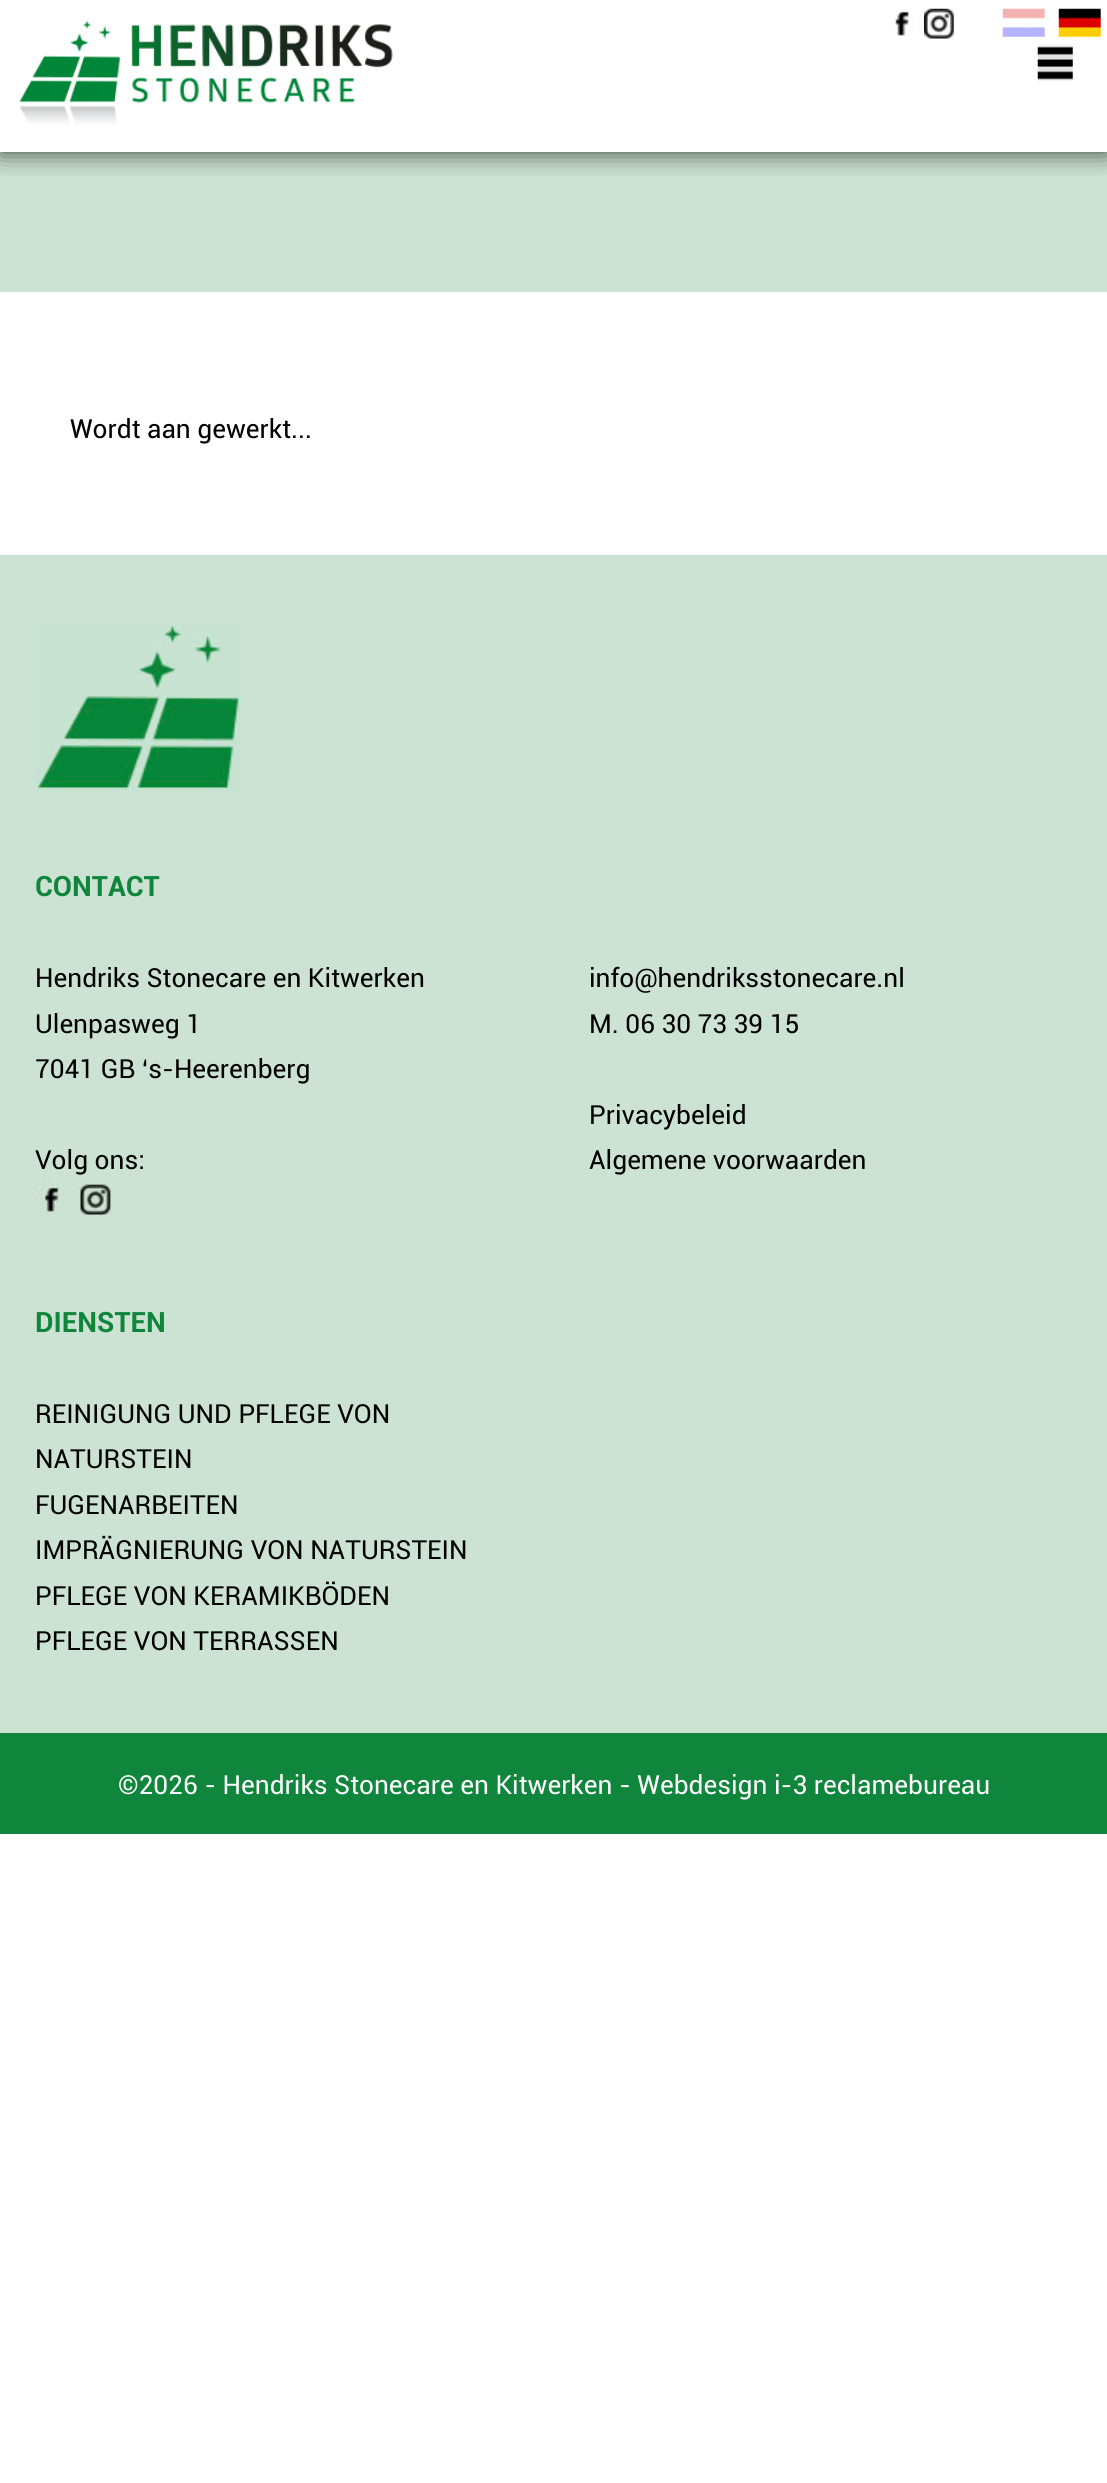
import math
import cairocffi as cairo

surface = cairo.ImageSurface(cairo.FORMAT_RGB24, 1107, 2483)
cr = cairo.Context(surface)
options = cairo.FontOptions()
options.set_hint_metrics(cairo.HINT_METRICS_OFF)
options.set_hint_style(cairo.HINT_STYLE_NONE)
cr.set_font_options(options)
cr.set_miter_limit(4)


def use_color(code):
    cr.set_source_rgb(*(v / 255 for v in bytes.fromhex(code[-6:])))


def round_rect(x, y, w, h, r):
    cr.new_sub_path()
    for i, (u, v) in enumerate([(x + w - r, y + h - r), (x + r, y + h - r), (x + r, y + r), (x + w - r, y + r)]):
        cr.arc(u, v, r, i * math.pi / 2, (i + 1) * math.pi / 2)
    cr.close_path()


def shadow(x, y, w, h, r, blur, alpha):
    cr.push_group_with_content(cairo.CONTENT_ALPHA)
    cr.set_operator(cairo.OPERATOR_SOURCE)
    for i in range(15, -16, -2):
        e = blur * i / 6
        if min(w, h) + 2 * e > 0:
            cr.set_source_rgba(0, 0, 0, alpha * math.erfc((i - 1) / 8.5) / 2)
            round_rect(x - e, y - e, w + 2 * e, h + 2 * e, max(0, min(r + e + blur * .6, min(w, h) / 2 + e)))
            cr.fill()
    cr.mask(cr.pop_group())


def picture(path, x, y, w, h):
    cr.save()
    cr.set_source_surface(cairo.ImageSurface.create_from_png(path), x, y)
    cr.rectangle(x, y, w, h)
    cr.fill()
    cr.restore()


use_color("#ffffff")
cr.paint()
use_color("#cce2d2")
cr.rectangle(0, 152, 1107, 140)
cr.fill()
cr.save()
cr.rectangle(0, 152, 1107, 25)
cr.clip()
use_color("#000000")
shadow(0, 0, 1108, 152, 0, 13, 0.75)
cr.restore()
picture("img1.png", 19, 21, 374, 103)
picture("img2.png", 895, 11, 20, 25)
picture("img3.png", 924, 8, 30, 31)
picture("img4.png", 1002, 8, 43, 29)
picture("img5.png", 1058, 8, 43, 29)
picture("img6.png", 1037, 45, 36, 36)
cr.select_font_face("Roboto")
cr.set_font_size(26.25)
use_color("#000000")
cr.move_to(70, 438)
cr.show_text("Wordt aan gewerkt...")
use_color("#cce2d2")
cr.rectangle(0, 555, 1107, 1178)
cr.fill()
picture("img7.png", 35, 624, 207, 169)
cr.select_font_face("Roboto", cairo.FONT_SLANT_NORMAL, cairo.FONT_WEIGHT_BOLD)
cr.set_font_size(28)
use_color("#10853c")
cr.move_to(35, 896)
cr.show_text("CONTACT")
cr.select_font_face("Roboto")
cr.set_font_size(26.25)
use_color("#000000")
cr.move_to(35, 987)
cr.show_text("Hendriks Stonecare en Kitwerken")
cr.move_to(35, 1033)
cr.show_text("Ulenpasweg 1")
cr.move_to(35, 1078)
cr.show_text("7041 GB ‘s-Heerenberg")
cr.move_to(35, 1169)
cr.show_text("Volg ons:")
picture("img8.png", 35, 1181, 28, 35)
picture("img9.png", 77, 1181, 35, 35)
cr.move_to(589, 987)
cr.show_text("info@hendriksstonecare.nl")
cr.move_to(589, 1033)
cr.show_text("M. 06 30 73 39 15")
cr.move_to(589, 1124)
cr.show_text("Privacybeleid")
cr.move_to(589, 1169)
cr.show_text("Algemene voorwaarden")
cr.select_font_face("Roboto", cairo.FONT_SLANT_NORMAL, cairo.FONT_WEIGHT_BOLD)
cr.set_font_size(28)
use_color("#10853c")
cr.move_to(35, 1332)
cr.show_text("DIENSTEN")
cr.select_font_face("Roboto")
cr.set_font_size(26.25)
use_color("#000000")
cr.move_to(35, 1423)
cr.show_text("REINIGUNG UND PFLEGE VON")
cr.move_to(35, 1468)
cr.show_text("NATURSTEIN")
cr.move_to(35, 1514)
cr.show_text("FUGENARBEITEN")
cr.move_to(35, 1559)
cr.show_text("IMPRÄGNIERUNG VON NATURSTEIN")
cr.move_to(35, 1605)
cr.show_text("PFLEGE VON KERAMIKBÖDEN")
cr.move_to(35, 1650)
cr.show_text("PFLEGE VON TERRASSEN")
use_color("#10853c")
cr.rectangle(0, 1733, 1107, 101)
cr.fill()
use_color("#ffffff")
cr.move_to(118, 1794)
cr.show_text("©2026 - Hendriks Stonecare en Kitwerken - Webdesign i-3 reclamebureau")
surface.write_to_png("result.png")
